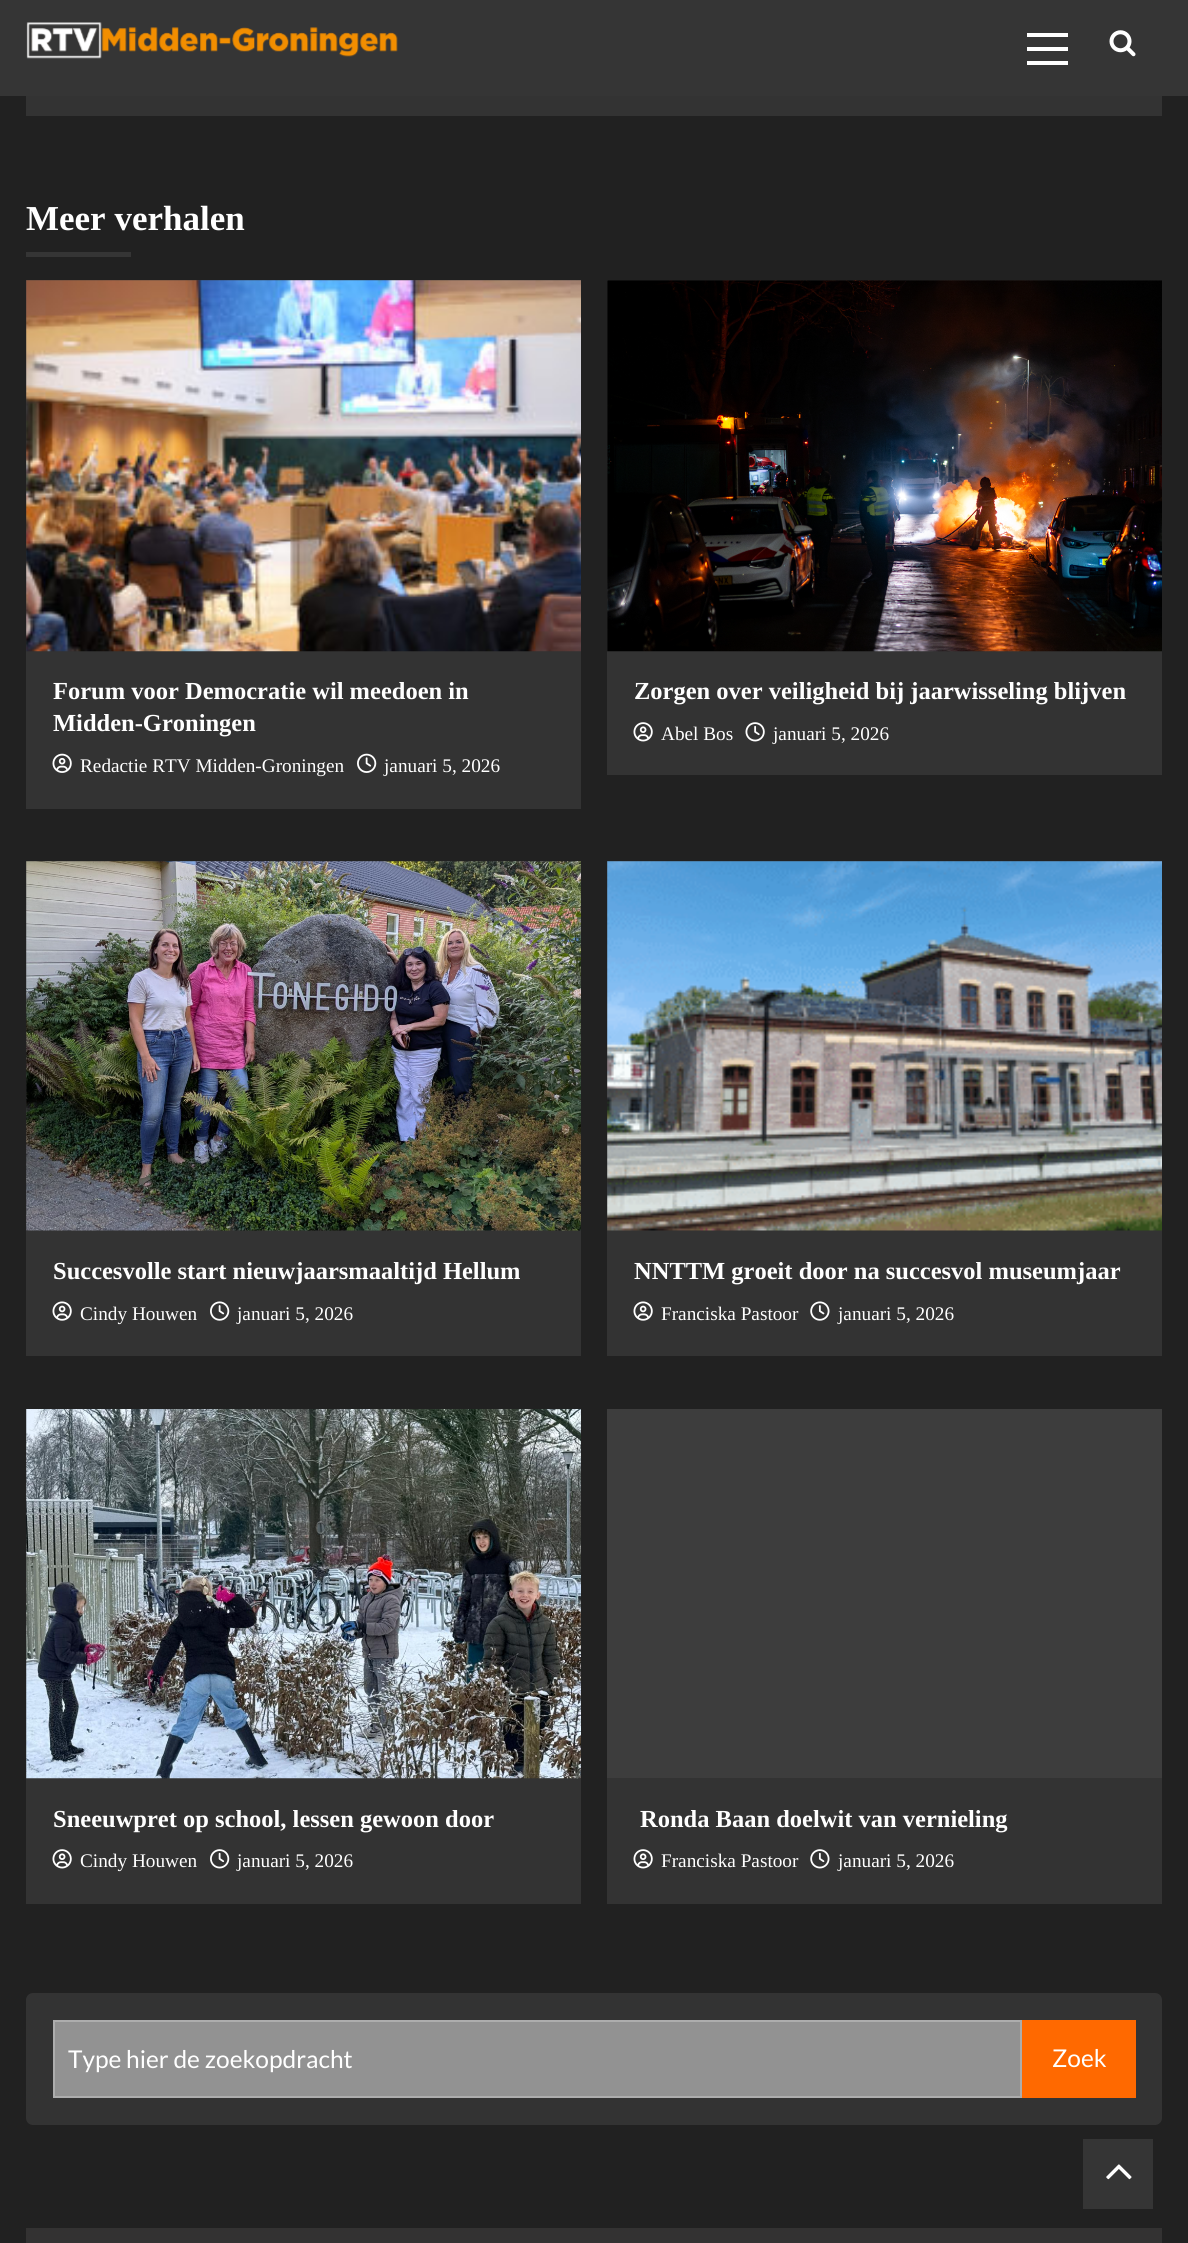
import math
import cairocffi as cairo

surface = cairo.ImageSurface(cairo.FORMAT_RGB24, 1188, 2243)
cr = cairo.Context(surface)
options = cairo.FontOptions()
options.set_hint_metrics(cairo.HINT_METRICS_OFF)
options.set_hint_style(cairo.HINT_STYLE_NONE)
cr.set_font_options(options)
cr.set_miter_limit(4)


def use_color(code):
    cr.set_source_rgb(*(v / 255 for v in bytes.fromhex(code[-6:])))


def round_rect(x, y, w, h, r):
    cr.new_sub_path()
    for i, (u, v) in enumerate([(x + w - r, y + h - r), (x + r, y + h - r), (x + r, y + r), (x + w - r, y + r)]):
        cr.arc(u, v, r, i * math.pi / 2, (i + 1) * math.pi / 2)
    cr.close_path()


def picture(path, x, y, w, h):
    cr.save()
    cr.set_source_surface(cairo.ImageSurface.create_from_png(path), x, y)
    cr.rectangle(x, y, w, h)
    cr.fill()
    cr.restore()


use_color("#212121")
cr.paint()
use_color("#353535")
cr.rectangle(0, 0, 1188, 96)
cr.fill()
picture("img1.png", 26, 22, 372, 37)
use_color("#ffffff")
cr.rectangle(1027, 47, 41, 4)
cr.fill()
cr.rectangle(1027, 33, 41, 4)
cr.fill()
cr.rectangle(1027, 61, 41, 4)
cr.fill()
picture("img2.png", 1109, 30, 27, 27)
use_color("#333333")
cr.rectangle(26, 96, 1136, 20)
cr.fill()
cr.select_font_face("Liberation Serif", cairo.FONT_SLANT_NORMAL, cairo.FONT_WEIGHT_BOLD)
cr.set_font_size(35)
use_color("#ffffff")
cr.move_to(26, 230)
cr.show_text("Meer verhalen")
use_color("#353535")
cr.rectangle(26, 252, 105, 5)
cr.fill()
use_color("#333333")
cr.rectangle(26, 651, 555, 158)
cr.fill()
use_color("#3d3d3d")
cr.rectangle(26, 280, 555, 371)
cr.fill()
picture("img3.png", 26, 280, 555, 372)
cr.set_font_size(24.5)
use_color("#ffffff")
cr.move_to(53, 699)
cr.show_text("Forum voor Democratie wil meedoen in")
cr.move_to(53, 731)
cr.show_text("Midden-Groningen")
picture("img4.png", 52, 753, 20, 20)
cr.select_font_face("Liberation Serif")
cr.set_font_size(19.25)
cr.move_to(80, 772)
cr.show_text("Redactie RTV Midden-Groningen")
picture("img5.png", 357, 753, 20, 20)
cr.move_to(384, 772)
cr.show_text("januari 5, 2026")
use_color("#333333")
cr.rectangle(607, 651, 555, 124)
cr.fill()
use_color("#3d3d3d")
cr.rectangle(607, 280, 555, 371)
cr.fill()
picture("img6.png", 607, 280, 555, 372)
cr.select_font_face("Liberation Serif", cairo.FONT_SLANT_NORMAL, cairo.FONT_WEIGHT_BOLD)
cr.set_font_size(24.5)
use_color("#ffffff")
cr.move_to(634, 699)
cr.show_text("Zorgen over veiligheid bij jaarwisseling blijven")
picture("img7.png", 633, 722, 20, 20)
cr.select_font_face("Liberation Serif")
cr.set_font_size(19.25)
cr.move_to(661, 740)
cr.show_text("Abel Bos")
picture("img8.png", 745, 722, 20, 20)
cr.move_to(773, 740)
cr.show_text("januari 5, 2026")
use_color("#333333")
cr.rectangle(26, 1230, 555, 126)
cr.fill()
use_color("#3d3d3d")
cr.rectangle(26, 861, 555, 369)
cr.fill()
picture("img9.png", 26, 861, 555, 370)
cr.select_font_face("Liberation Serif", cairo.FONT_SLANT_NORMAL, cairo.FONT_WEIGHT_BOLD)
cr.set_font_size(24.5)
use_color("#ffffff")
cr.move_to(53, 1279)
cr.show_text("Succesvolle start nieuwjaarsmaaltijd Hellum")
picture("img10.png", 52, 1301, 20, 20)
cr.select_font_face("Liberation Serif")
cr.set_font_size(19.25)
cr.move_to(80, 1320)
cr.show_text("Cindy Houwen")
picture("img11.png", 210, 1301, 20, 20)
cr.move_to(237, 1320)
cr.show_text("januari 5, 2026")
use_color("#333333")
cr.rectangle(607, 1230, 555, 126)
cr.fill()
use_color("#3d3d3d")
cr.rectangle(607, 861, 555, 369)
cr.fill()
picture("img12.png", 607, 861, 555, 370)
cr.select_font_face("Liberation Serif", cairo.FONT_SLANT_NORMAL, cairo.FONT_WEIGHT_BOLD)
cr.set_font_size(24.5)
use_color("#ffffff")
cr.move_to(634, 1279)
cr.show_text("NNTTM groeit door na succesvol museumjaar")
picture("img10.png", 633, 1301, 20, 20)
cr.select_font_face("Liberation Serif")
cr.set_font_size(19.25)
cr.move_to(661, 1320)
cr.show_text("Franciska Pastoor")
picture("img13.png", 810, 1301, 20, 20)
cr.move_to(838, 1320)
cr.show_text("januari 5, 2026")
use_color("#333333")
cr.rectangle(26, 1409, 555, 495)
cr.fill()
picture("img14.png", 26, 1409, 555, 370)
cr.select_font_face("Liberation Serif", cairo.FONT_SLANT_NORMAL, cairo.FONT_WEIGHT_BOLD)
cr.set_font_size(24.5)
use_color("#ffffff")
cr.move_to(53, 1827)
cr.show_text("Sneeuwpret op school, lessen gewoon door")
picture("img7.png", 52, 1849, 20, 20)
cr.select_font_face("Liberation Serif")
cr.set_font_size(19.25)
cr.move_to(80, 1867)
cr.show_text("Cindy Houwen")
picture("img15.png", 210, 1849, 20, 20)
cr.move_to(237, 1867)
cr.show_text("januari 5, 2026")
use_color("#333333")
cr.rectangle(607, 1778, 555, 126)
cr.fill()
use_color("#3d3d3d")
cr.rectangle(607, 1409, 555, 369)
cr.fill()
cr.select_font_face("Liberation Serif", cairo.FONT_SLANT_NORMAL, cairo.FONT_WEIGHT_BOLD)
cr.set_font_size(24.5)
use_color("#ffffff")
cr.move_to(640, 1827)
cr.show_text("Ronda Baan doelwit van vernieling")
picture("img7.png", 633, 1849, 20, 20)
cr.select_font_face("Liberation Serif")
cr.set_font_size(19.25)
cr.move_to(661, 1867)
cr.show_text("Franciska Pastoor")
picture("img16.png", 810, 1849, 20, 20)
cr.move_to(838, 1867)
cr.show_text("januari 5, 2026")
use_color("#333333")
round_rect(26, 1993, 1136, 132, 7)
cr.fill()
use_color("#929292")
cr.rectangle(54, 2021, 967, 76)
cr.fill_preserve()
use_color("#adadad")
cr.stroke()
cr.select_font_face("Lato")
cr.set_font_size(24.5)
use_color("#ffffff")
cr.move_to(68, 2068)
cr.show_text("Type hier de zoekopdracht")
use_color("#ff6900")
cr.rectangle(1022, 2020, 114, 78)
cr.fill()
use_color("#ffffff")
cr.move_to(1052, 2067)
cr.show_text("Zoek")
use_color("#333232")
cr.rectangle(26, 2228, 1136, 15)
cr.fill()
use_color("#353535")
cr.rectangle(1083, 2139, 70, 70)
cr.fill()
picture("img17.png", 1106, 2164, 26, 16)
surface.write_to_png("result.png")
